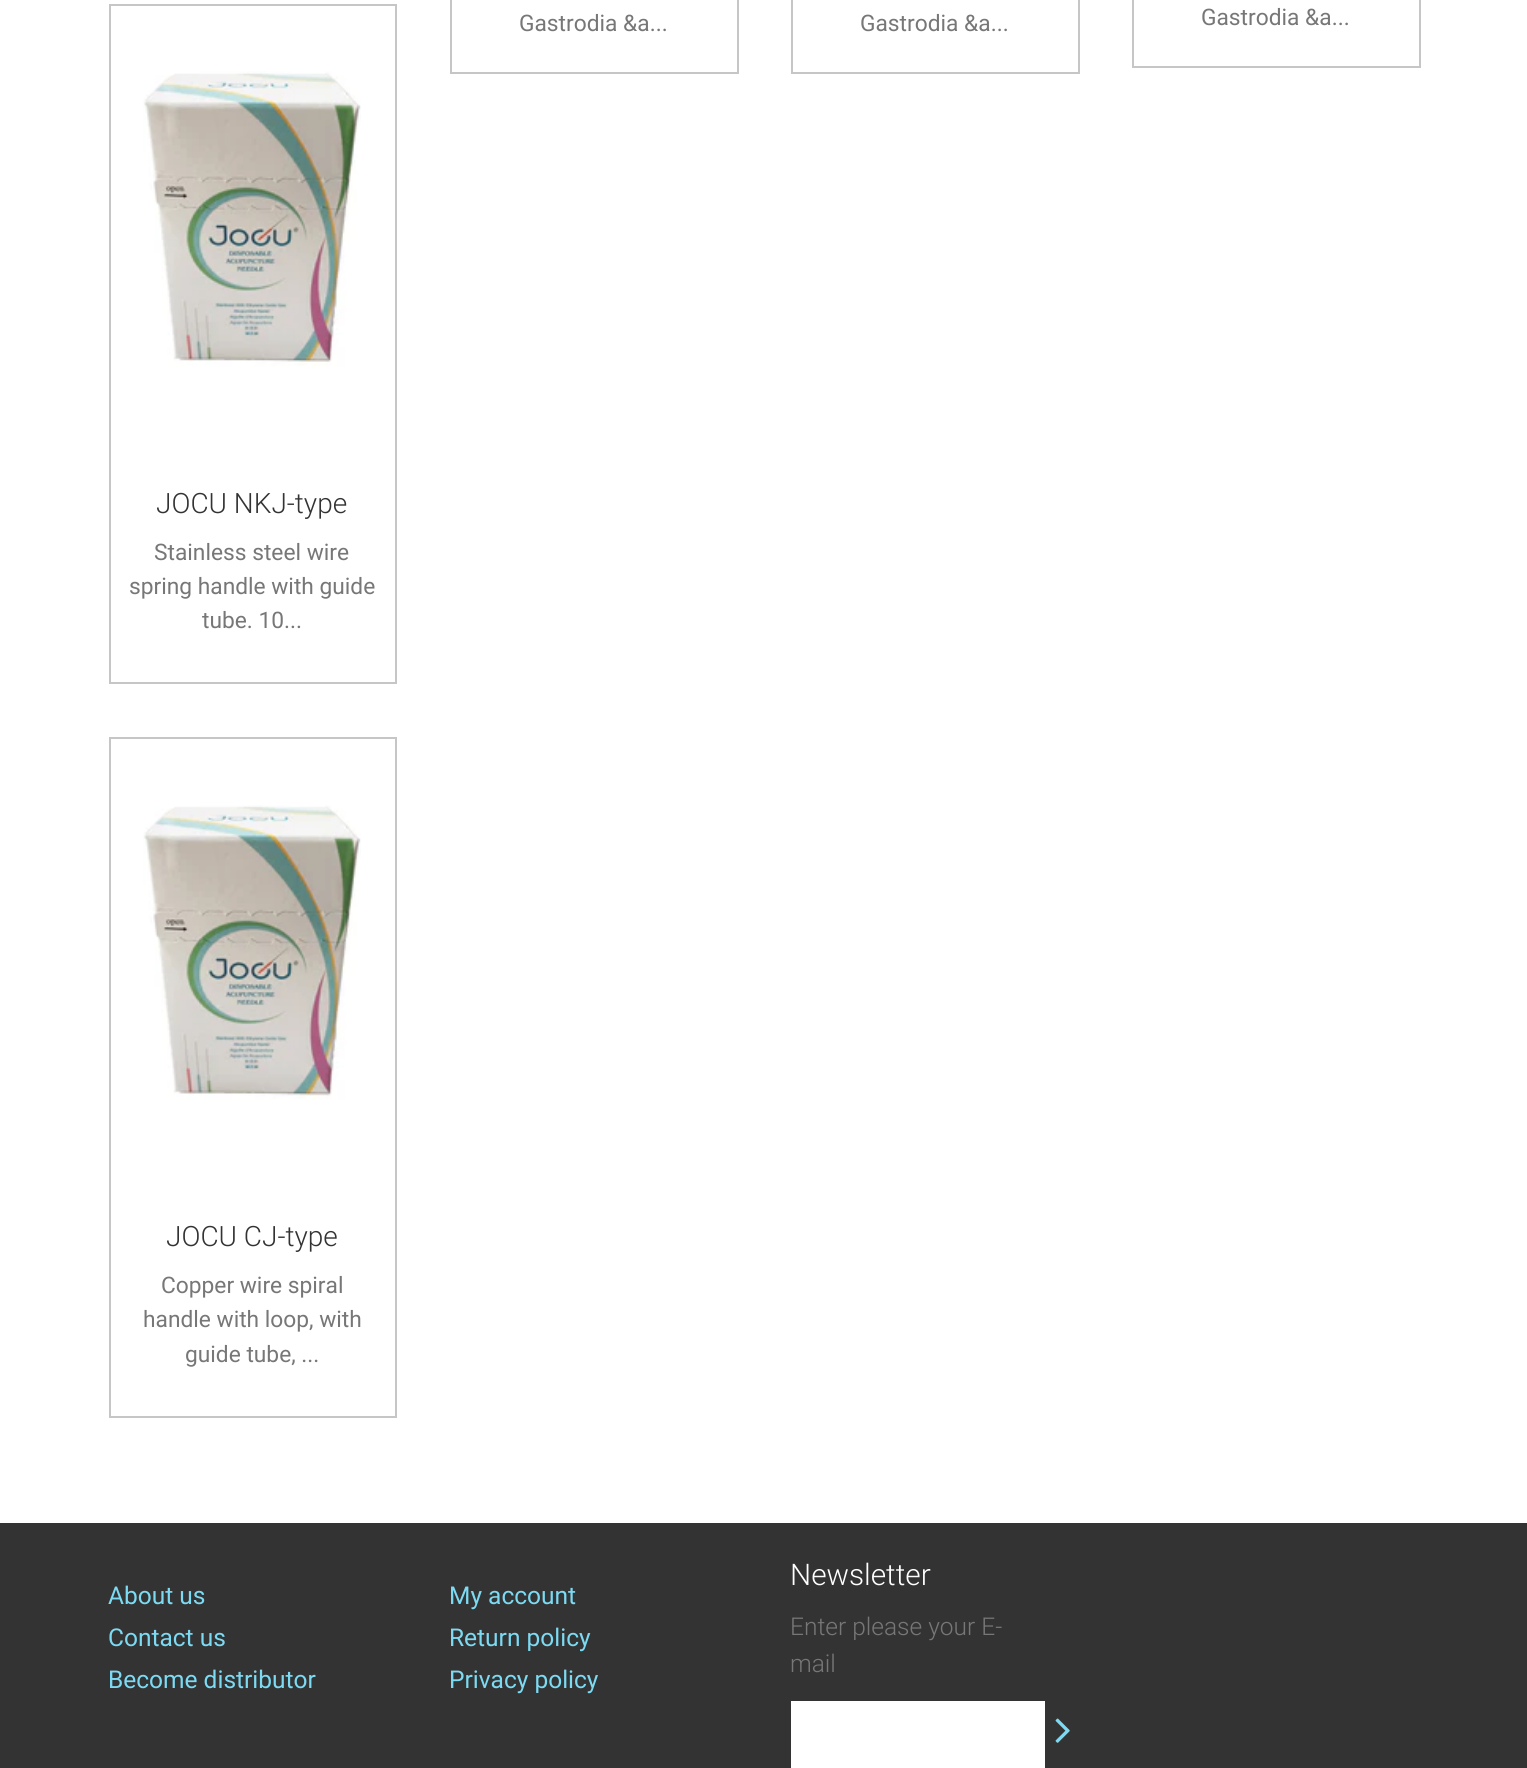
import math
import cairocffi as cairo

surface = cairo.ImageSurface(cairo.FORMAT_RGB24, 1527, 1768)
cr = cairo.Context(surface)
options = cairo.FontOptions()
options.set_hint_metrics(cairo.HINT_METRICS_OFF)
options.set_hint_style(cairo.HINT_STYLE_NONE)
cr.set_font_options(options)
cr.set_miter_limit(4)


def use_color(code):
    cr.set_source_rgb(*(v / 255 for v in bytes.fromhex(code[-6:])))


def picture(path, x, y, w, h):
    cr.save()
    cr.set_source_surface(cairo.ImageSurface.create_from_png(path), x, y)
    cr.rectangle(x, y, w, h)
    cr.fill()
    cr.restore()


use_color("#ffffff")
cr.paint()
cr.rectangle(451, -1, 287, 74)
use_color("#c6c6c6")
cr.stroke()
cr.select_font_face("Roboto")
cr.set_font_size(22.75)
use_color("#777777")
cr.move_to(519, 31)
cr.show_text("Gastrodia &a...")
cr.rectangle(792, -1, 287, 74)
use_color("#c6c6c6")
cr.stroke()
use_color("#777777")
cr.move_to(860, 31)
cr.show_text("Gastrodia &a...")
cr.rectangle(1133, -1, 287, 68)
use_color("#c6c6c6")
cr.stroke()
use_color("#777777")
cr.move_to(1201, 25)
cr.show_text("Gastrodia &a...")
cr.rectangle(110, 5, 286, 678)
use_color("#c6c6c6")
cr.stroke()
picture("img1.png", 143, 71, 218, 296)
cr.select_font_face("Roboto Light")
cr.set_font_size(28)
use_color("#333333")
cr.move_to(156, 513)
cr.show_text("JOCU NKJ-type")
cr.select_font_face("Roboto")
cr.set_font_size(22.75)
use_color("#777777")
cr.move_to(154, 560)
cr.show_text("Stainless steel wire")
cr.move_to(129, 594)
cr.show_text("spring handle with guide")
cr.move_to(202, 628)
cr.show_text("tube. 10...")
cr.rectangle(110, 738, 286, 679)
use_color("#c6c6c6")
cr.stroke()
picture("img2.png", 143, 805, 218, 295)
cr.select_font_face("Roboto Light")
cr.set_font_size(28)
use_color("#333333")
cr.move_to(166, 1246)
cr.show_text("JOCU CJ-type")
cr.select_font_face("Roboto")
cr.set_font_size(22.75)
use_color("#777777")
cr.move_to(161, 1293)
cr.show_text("Copper wire spiral")
cr.move_to(143, 1327)
cr.show_text("handle with loop, with")
cr.move_to(185, 1362)
cr.show_text("guide tube, ...")
use_color("#333333")
cr.rectangle(0, 1523, 1527, 245)
cr.fill()
cr.set_font_size(24.5)
use_color("#7cdaf3")
cr.move_to(108, 1604)
cr.show_text("About us")
cr.move_to(108, 1646)
cr.show_text("Contact us")
cr.move_to(108, 1688)
cr.show_text("Become distributor")
cr.move_to(449, 1604)
cr.show_text("My account")
cr.move_to(449, 1646)
cr.show_text("Return policy")
cr.move_to(449, 1688)
cr.show_text("Privacy policy")
cr.select_font_face("Roboto Light")
cr.set_font_size(29.75)
use_color("#ffffff")
cr.move_to(790, 1585)
cr.show_text("Newsletter")
cr.set_font_size(24.5)
use_color("#777777")
cr.move_to(790, 1635)
cr.show_text("Enter please your E-")
cr.move_to(790, 1672)
cr.show_text("mail")
use_color("#ffffff")
cr.rectangle(791, 1701, 254, 67)
cr.fill()
picture("img3.png", 1055, 1718, 15, 25)
surface.write_to_png("result.png")
